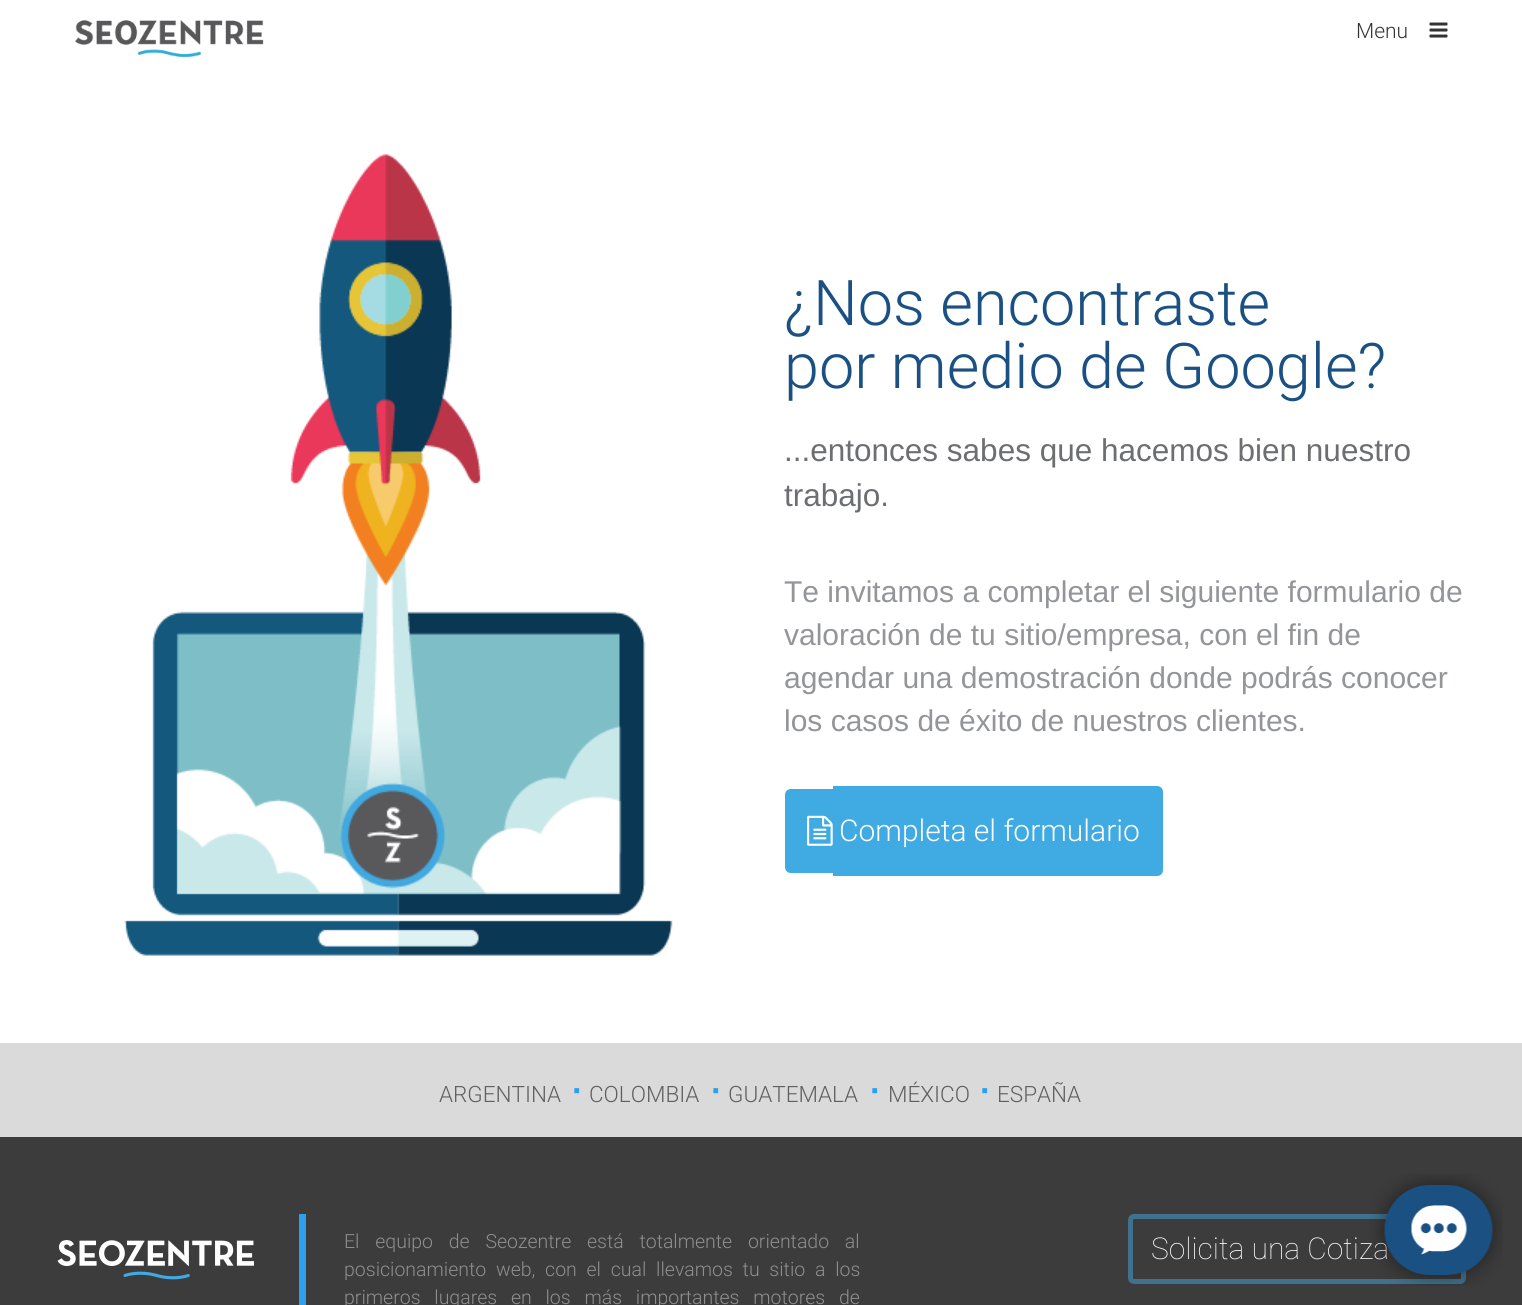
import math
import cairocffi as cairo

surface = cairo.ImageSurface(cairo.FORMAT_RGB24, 1522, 1305)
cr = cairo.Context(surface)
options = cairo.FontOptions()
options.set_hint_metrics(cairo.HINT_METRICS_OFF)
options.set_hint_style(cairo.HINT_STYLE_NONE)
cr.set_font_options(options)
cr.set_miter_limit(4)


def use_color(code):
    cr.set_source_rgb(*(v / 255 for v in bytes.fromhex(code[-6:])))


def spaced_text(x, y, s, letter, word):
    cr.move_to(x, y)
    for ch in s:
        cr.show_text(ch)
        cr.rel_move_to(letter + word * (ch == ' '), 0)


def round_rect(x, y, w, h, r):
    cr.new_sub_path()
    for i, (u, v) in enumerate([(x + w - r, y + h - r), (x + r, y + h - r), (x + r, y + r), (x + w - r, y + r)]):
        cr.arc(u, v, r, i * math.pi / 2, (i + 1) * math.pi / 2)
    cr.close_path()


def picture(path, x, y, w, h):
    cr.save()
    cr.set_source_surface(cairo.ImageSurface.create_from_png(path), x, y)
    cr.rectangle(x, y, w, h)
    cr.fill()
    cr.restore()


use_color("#ffffff")
cr.paint()
picture("img1.png", 75, 20, 189, 37)
cr.select_font_face("Roboto Light")
cr.set_font_size(21)
use_color("#333333")
cr.move_to(1356, 38)
cr.show_text("Menu")
picture("img2.png", 1429, 22, 19, 16)
picture("img4.png", 124, 611, 549, 345)
picture("img3.png", 290, 154, 191, 681)
picture("img5.png", 340, 782, 106, 107)
cr.set_font_size(63)
use_color("#1b5083")
cr.move_to(784, 325)
cr.show_text("¿Nos encontraste")
cr.move_to(784, 388)
cr.show_text("por medio de Google?")
cr.select_font_face("Liberation Sans")
cr.set_font_size(31.5)
use_color("#6d6e71")
cr.move_to(784, 461)
cr.show_text("...entonces sabes que hacemos bien nuestro")
cr.move_to(784, 506)
cr.show_text("trabajo.")
cr.set_font_size(30)
use_color("#939598")
cr.move_to(784, 602)
cr.show_text("Te invitamos a completar el siguiente formulario de")
cr.move_to(784, 645)
cr.show_text("valoración de tu sitio/empresa, con el fin de")
cr.move_to(784, 688)
cr.show_text("agendar una demostración donde podrás conocer")
cr.move_to(784, 731)
cr.show_text("los casos de éxito de nuestros clientes.")
use_color("#40aae2")
cr.new_path()
cr.move_to(791, 789)
cr.line_to(833, 789)
cr.line_to(833, 873)
cr.line_to(791, 873)
cr.curve_to(787.5, 873, 785, 870.5, 785, 867)
cr.line_to(785, 795)
cr.curve_to(785, 791.5, 787.5, 789, 791, 789)
cr.close_path()
cr.fill()
cr.new_path()
cr.move_to(833, 786)
cr.line_to(1157, 786)
cr.curve_to(1160.5, 786, 1163, 788.5, 1163, 792)
cr.line_to(1163, 870)
cr.curve_to(1163, 873.5, 1160.5, 876, 1157, 876)
cr.line_to(833, 876)
cr.close_path()
cr.fill()
picture("img6.png", 807, 815, 26, 31)
cr.select_font_face("Roboto Light")
use_color("#ffffff")
cr.move_to(839, 841)
cr.show_text("Completa el formulario")
use_color("#dadada")
cr.rectangle(0, 1043, 1522, 94)
cr.fill()
cr.set_font_size(22.5)
use_color("#606060")
cr.move_to(439, 1102)
cr.show_text("ARGENTINA")
cr.select_font_face("Liberation Sans", cairo.FONT_SLANT_NORMAL, cairo.FONT_WEIGHT_BOLD)
cr.set_font_size(34)
use_color("#2aa0ef")
cr.move_to(572, 1102)
cr.show_text("·")
cr.select_font_face("Roboto Light")
cr.set_font_size(22.5)
use_color("#606060")
cr.move_to(589, 1102)
cr.show_text("COLOMBIA")
cr.select_font_face("Liberation Sans", cairo.FONT_SLANT_NORMAL, cairo.FONT_WEIGHT_BOLD)
cr.set_font_size(34)
use_color("#2aa0ef")
cr.move_to(711, 1102)
cr.show_text("·")
cr.select_font_face("Roboto Light")
cr.set_font_size(22.5)
use_color("#606060")
cr.move_to(728, 1102)
cr.show_text("GUATEMALA")
cr.select_font_face("Liberation Sans", cairo.FONT_SLANT_NORMAL, cairo.FONT_WEIGHT_BOLD)
cr.set_font_size(34)
use_color("#2aa0ef")
cr.move_to(870, 1102)
cr.show_text("·")
cr.select_font_face("Roboto Light")
cr.set_font_size(22.5)
use_color("#606060")
cr.move_to(888, 1102)
cr.show_text("MÉXICO")
cr.select_font_face("Liberation Sans", cairo.FONT_SLANT_NORMAL, cairo.FONT_WEIGHT_BOLD)
cr.set_font_size(34)
use_color("#2aa0ef")
cr.move_to(980, 1102)
cr.show_text("·")
cr.select_font_face("Roboto Light")
cr.set_font_size(22.5)
use_color("#606060")
cr.move_to(997, 1102)
cr.show_text("ESPAÑA")
use_color("#3c3c3c")
cr.rectangle(0, 1137, 1522, 168)
cr.fill()
picture("img7.png", 57, 1240, 197, 40)
use_color("#2aa0ef")
cr.rectangle(299, 1214, 7, 91)
cr.fill()
cr.set_font_size(19.5)
use_color("#8e8e8e")
spaced_text(344, 1248, "El equipo de Seozentre está totalmente orientado al", 0, 11)
spaced_text(344, 1276, "posicionamiento web, con el cual llevamos tu sitio a los", 0, 5)
spaced_text(344, 1304, "primeros lugares en los más importantes motores de", 0, 9)
round_rect(1130.5, 1216.5, 333, 65, 3.5)
use_color("#40718f")
cr.set_line_width(5)
cr.stroke()
cr.select_font_face("Roboto Thin")
cr.set_font_size(30)
use_color("#ffffff")
cr.move_to(1151, 1259)
cr.show_text("Solicita una Cotiza")
picture("img8.png", 1369, 1174, 134, 112)
surface.write_to_png("result.png")
